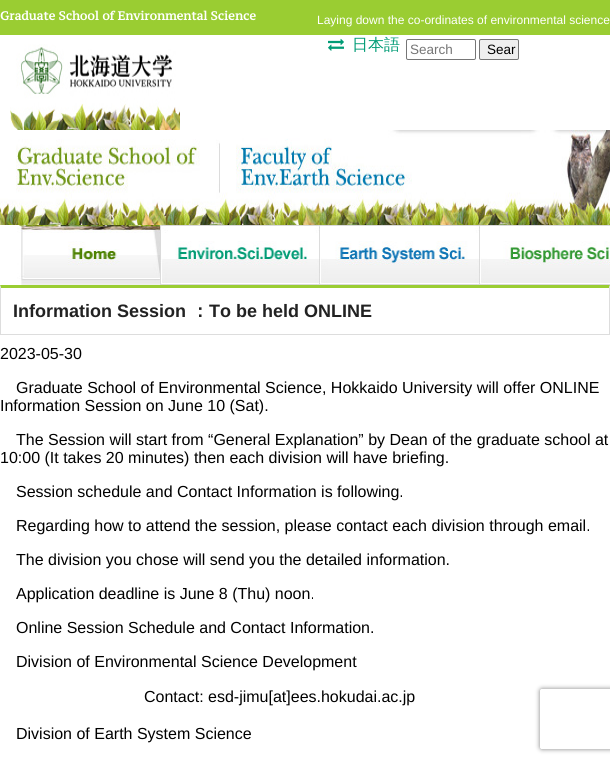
import math
import cairocffi as cairo

surface = cairo.ImageSurface(cairo.FORMAT_RGB24, 610, 763)
cr = cairo.Context(surface)
options = cairo.FontOptions()
options.set_hint_metrics(cairo.HINT_METRICS_OFF)
options.set_hint_style(cairo.HINT_STYLE_NONE)
cr.set_font_options(options)
cr.set_miter_limit(4)


def use_color(code):
    cr.set_source_rgb(*(v / 255 for v in bytes.fromhex(code[-6:])))


def round_rect(x, y, w, h, r):
    cr.new_sub_path()
    for i, (u, v) in enumerate([(x + w - r, y + h - r), (x + r, y + h - r), (x + r, y + r), (x + w - r, y + r)]):
        cr.arc(u, v, r, i * math.pi / 2, (i + 1) * math.pi / 2)
    cr.close_path()


def shadow(x, y, w, h, r, blur, alpha):
    cr.push_group_with_content(cairo.CONTENT_ALPHA)
    cr.set_operator(cairo.OPERATOR_SOURCE)
    for i in range(15, -16, -2):
        e = blur * i / 6
        if min(w, h) + 2 * e > 0:
            cr.set_source_rgba(0, 0, 0, alpha * math.erfc((i - 1) / 8.5) / 2)
            round_rect(x - e, y - e, w + 2 * e, h + 2 * e, max(0, min(r + e + blur * .6, min(w, h) / 2 + e)))
            cr.fill()
    cr.mask(cr.pop_group())


def picture(path, x, y, w, h):
    cr.save()
    cr.set_source_surface(cairo.ImageSurface.create_from_png(path), x, y)
    cr.rectangle(x, y, w, h)
    cr.fill()
    cr.restore()


use_color("#ffffff")
cr.paint()
use_color("#9acd32")
cr.rectangle(0, 0, 610, 35)
cr.fill()
cr.select_font_face("PT Serif Caption", cairo.FONT_SLANT_NORMAL, cairo.FONT_WEIGHT_BOLD)
cr.set_font_size(12)
use_color("#ffffff")
cr.move_to(0, 20)
cr.show_text("Graduate School of Environmental Science")
cr.select_font_face("Liberation Sans")
cr.move_to(317, 24)
cr.show_text("Laying down the co-ordinates of environmental science")
picture("img1.png", 328, 38, 16, 13)
cr.select_font_face("WenQuanYi Zen Hei Medium")
cr.set_font_size(16)
use_color("#019c76")
cr.move_to(352, 50)
cr.show_text("日本語")
round_rect(406.5, 39.5, 69, 20, 1.5)
use_color("#767676")
cr.set_line_width(1)
cr.stroke()
cr.select_font_face("Liberation Sans")
cr.set_font_size(13.5)
use_color("#757575")
cr.move_to(410, 54)
cr.show_text("Search")
use_color("#efefef")
round_rect(479.5, 39.5, 39, 20, 1.5)
cr.fill_preserve()
use_color("#767676")
cr.stroke()
use_color("#000000")
cr.move_to(487, 54)
cr.show_text("Sear")
picture("img2.png", 10, 44, 170, 86)
picture("img3.png", 0, 139, 220, 86)
picture("img4.png", 220, 130, 245, 95)
picture("img5.png", 465, 130, 145, 95)
picture("img6.png", 17, 225, 143, 60)
picture("img7.png", 160, 225, 160, 60)
picture("img8.png", 320, 225, 160, 60)
picture("img9.png", 480, 225, 130, 60)
use_color("#9acd32")
cr.new_path()
cr.move_to(0, 285)
cr.line_to(610, 285)
cr.line_to(609, 288)
cr.line_to(1, 288)
cr.close_path()
cr.fill()
use_color("#dddddd")
cr.new_path()
cr.move_to(610, 285)
cr.line_to(610, 335)
cr.line_to(609, 334)
cr.line_to(609, 288)
cr.close_path()
cr.fill()
cr.rectangle(0, 334, 610, 1)
cr.fill()
cr.new_path()
cr.move_to(0, 335)
cr.line_to(0, 285)
cr.line_to(1, 288)
cr.line_to(1, 334)
cr.close_path()
cr.fill()
cr.select_font_face("Liberation Sans", cairo.FONT_SLANT_NORMAL, cairo.FONT_WEIGHT_BOLD)
cr.set_font_size(18)
use_color("#222222")
cr.move_to(13, 317)
cr.show_text("Information Session")
cr.select_font_face("WenQuanYi Zen Hei", cairo.FONT_SLANT_NORMAL, cairo.FONT_WEIGHT_BOLD)
cr.move_to(191, 317)
cr.show_text("：")
cr.select_font_face("Liberation Sans", cairo.FONT_SLANT_NORMAL, cairo.FONT_WEIGHT_BOLD)
cr.move_to(209, 317)
cr.show_text("To be held ONLINE")
cr.select_font_face("Liberation Sans")
cr.set_font_size(16)
use_color("#000000")
cr.move_to(0, 359)
cr.show_text("2023-05-30")
cr.move_to(16, 393)
cr.show_text("Graduate School of Environmental Science, Hokkaido University will offer ONLINE")
cr.move_to(0, 411)
cr.show_text("Information Session on June 10 (Sat).")
cr.move_to(16, 445)
cr.show_text("The Session will start from “General Explanation” by Dean of the graduate school at")
cr.move_to(0, 463)
cr.show_text("10:00 (It takes 20 minutes) then each division will have briefing.")
cr.move_to(16, 497)
cr.show_text("Session schedule and Contact Information is following.")
cr.move_to(16, 531)
cr.show_text("Regarding how to attend the session, please contact each division through email.")
cr.move_to(16, 565)
cr.show_text("The division you chose will send you the detailed information.")
cr.move_to(16, 599)
cr.show_text("Application deadline is June 8 (Thu) noon.")
cr.move_to(16, 633)
cr.show_text("Online Session Schedule and Contact Information.")
cr.move_to(16, 667)
cr.show_text("Division of Environmental Science Development")
cr.move_to(144, 702)
cr.show_text("Contact: esd-jimu[at]ees.hokudai.ac.jp")
cr.move_to(16, 739)
cr.show_text("Division of Earth System Science")
cr.save()
cr.set_fill_rule(cairo.FILL_RULE_EVEN_ODD)
cr.new_path()
cr.move_to(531, 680)
cr.line_to(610, 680)
cr.line_to(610, 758)
cr.line_to(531, 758)
cr.close_path()
cr.move_to(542, 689)
cr.line_to(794, 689)
cr.curve_to(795, 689, 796, 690, 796, 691)
cr.line_to(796, 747)
cr.curve_to(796, 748, 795, 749, 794, 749)
cr.line_to(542, 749)
cr.curve_to(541, 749, 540, 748, 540, 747)
cr.line_to(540, 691)
cr.curve_to(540, 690, 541, 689, 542, 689)
cr.close_path()
cr.clip()
use_color("#808080")
shadow(540, 689, 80, 60, 2, 2.5, 1)
cr.restore()
surface.write_to_png("result.png")
